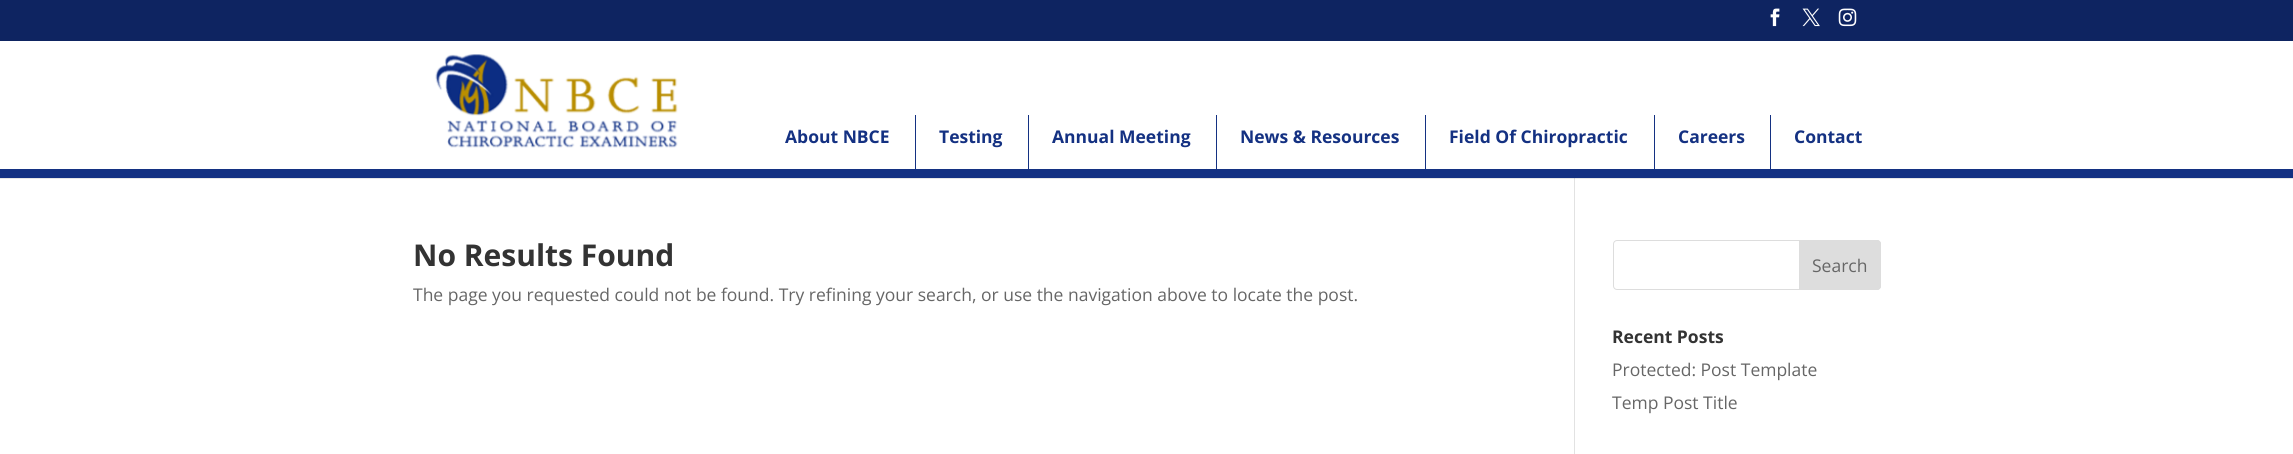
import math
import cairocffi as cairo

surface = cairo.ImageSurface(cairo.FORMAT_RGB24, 2293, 454)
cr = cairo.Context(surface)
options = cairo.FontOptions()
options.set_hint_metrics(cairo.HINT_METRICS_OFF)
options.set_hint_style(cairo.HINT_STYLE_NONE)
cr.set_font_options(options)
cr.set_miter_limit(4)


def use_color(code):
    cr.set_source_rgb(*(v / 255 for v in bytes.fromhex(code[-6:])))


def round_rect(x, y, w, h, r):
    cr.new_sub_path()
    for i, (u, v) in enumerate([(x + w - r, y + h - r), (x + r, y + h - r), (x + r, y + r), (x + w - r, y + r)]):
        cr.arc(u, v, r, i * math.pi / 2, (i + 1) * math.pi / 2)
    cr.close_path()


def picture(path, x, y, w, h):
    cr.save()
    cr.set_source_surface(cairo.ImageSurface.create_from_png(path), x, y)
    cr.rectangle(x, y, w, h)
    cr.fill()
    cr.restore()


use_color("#ffffff")
cr.paint()
use_color("#0e2461")
cr.rectangle(0, 0, 2293, 41)
cr.fill()
picture("img1.png", 1770, 8, 10, 19)
picture("img2.png", 1802, 8, 18, 19)
picture("img3.png", 1838, 8, 19, 19)
use_color("#e2e2e2")
cr.rectangle(1574, 178, 1, 276)
cr.fill()
cr.set_source_rgba(0, 0, 0, 0.1)
cr.new_path()
cr.move_to(0, 178)
cr.line_to(0, 179)
cr.line_to(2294, 179)
cr.line_to(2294, 43)
cr.line_to(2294, 178)
cr.close_path()
cr.fill()
use_color("#143182")
cr.rectangle(0, 169, 2293, 9)
cr.fill()
picture("img4.png", 435, 54, 243, 94)
cr.rectangle(915, 115, 1, 54)
cr.fill()
cr.select_font_face("Open Sans", cairo.FONT_SLANT_NORMAL, cairo.FONT_WEIGHT_BOLD)
cr.set_font_size(17.5)
cr.move_to(785, 143)
cr.show_text("About NBCE")
cr.rectangle(1028, 115, 1, 54)
cr.fill()
cr.move_to(939, 143)
cr.show_text("Testing")
cr.rectangle(1216, 115, 1, 54)
cr.fill()
cr.move_to(1052, 143)
cr.show_text("Annual Meeting")
cr.rectangle(1425, 115, 1, 54)
cr.fill()
cr.move_to(1240, 143)
cr.show_text("News & Resources")
cr.rectangle(1654, 115, 1, 54)
cr.fill()
cr.move_to(1449, 143)
cr.show_text("Field Of Chiropractic")
cr.rectangle(1770, 115, 1, 54)
cr.fill()
cr.move_to(1678, 143)
cr.show_text("Careers")
cr.move_to(1794, 143)
cr.show_text("Contact")
cr.set_font_size(30)
use_color("#333333")
cr.move_to(413, 266)
cr.show_text("No Results Found")
cr.select_font_face("Open Sans")
cr.set_font_size(17.5)
use_color("#666666")
cr.move_to(413, 301)
cr.show_text("The page you requested could not be found. Try refining your search, or use the navigation above to locate the post.")
round_rect(1613.5, 240.5, 267, 49, 3.5)
use_color("#dddddd")
cr.set_line_width(1)
cr.stroke()
cr.new_path()
cr.move_to(1799.5, 240.5)
cr.line_to(1877, 240.5)
cr.curve_to(1879, 240.5, 1880.5, 242, 1880.5, 244)
cr.line_to(1880.5, 286)
cr.curve_to(1880.5, 288, 1879, 289.5, 1877, 289.5)
cr.line_to(1799.5, 289.5)
cr.close_path()
cr.fill_preserve()
cr.stroke()
use_color("#666666")
cr.move_to(1812, 272)
cr.show_text("Search")
cr.select_font_face("Open Sans", cairo.FONT_SLANT_NORMAL, cairo.FONT_WEIGHT_BOLD)
use_color("#333333")
cr.move_to(1612, 343)
cr.show_text("Recent Posts")
cr.select_font_face("Open Sans")
use_color("#666666")
cr.move_to(1612, 376)
cr.show_text("Protected: Post Template")
cr.move_to(1612, 409)
cr.show_text("Temp Post Title")
surface.write_to_png("result.png")
